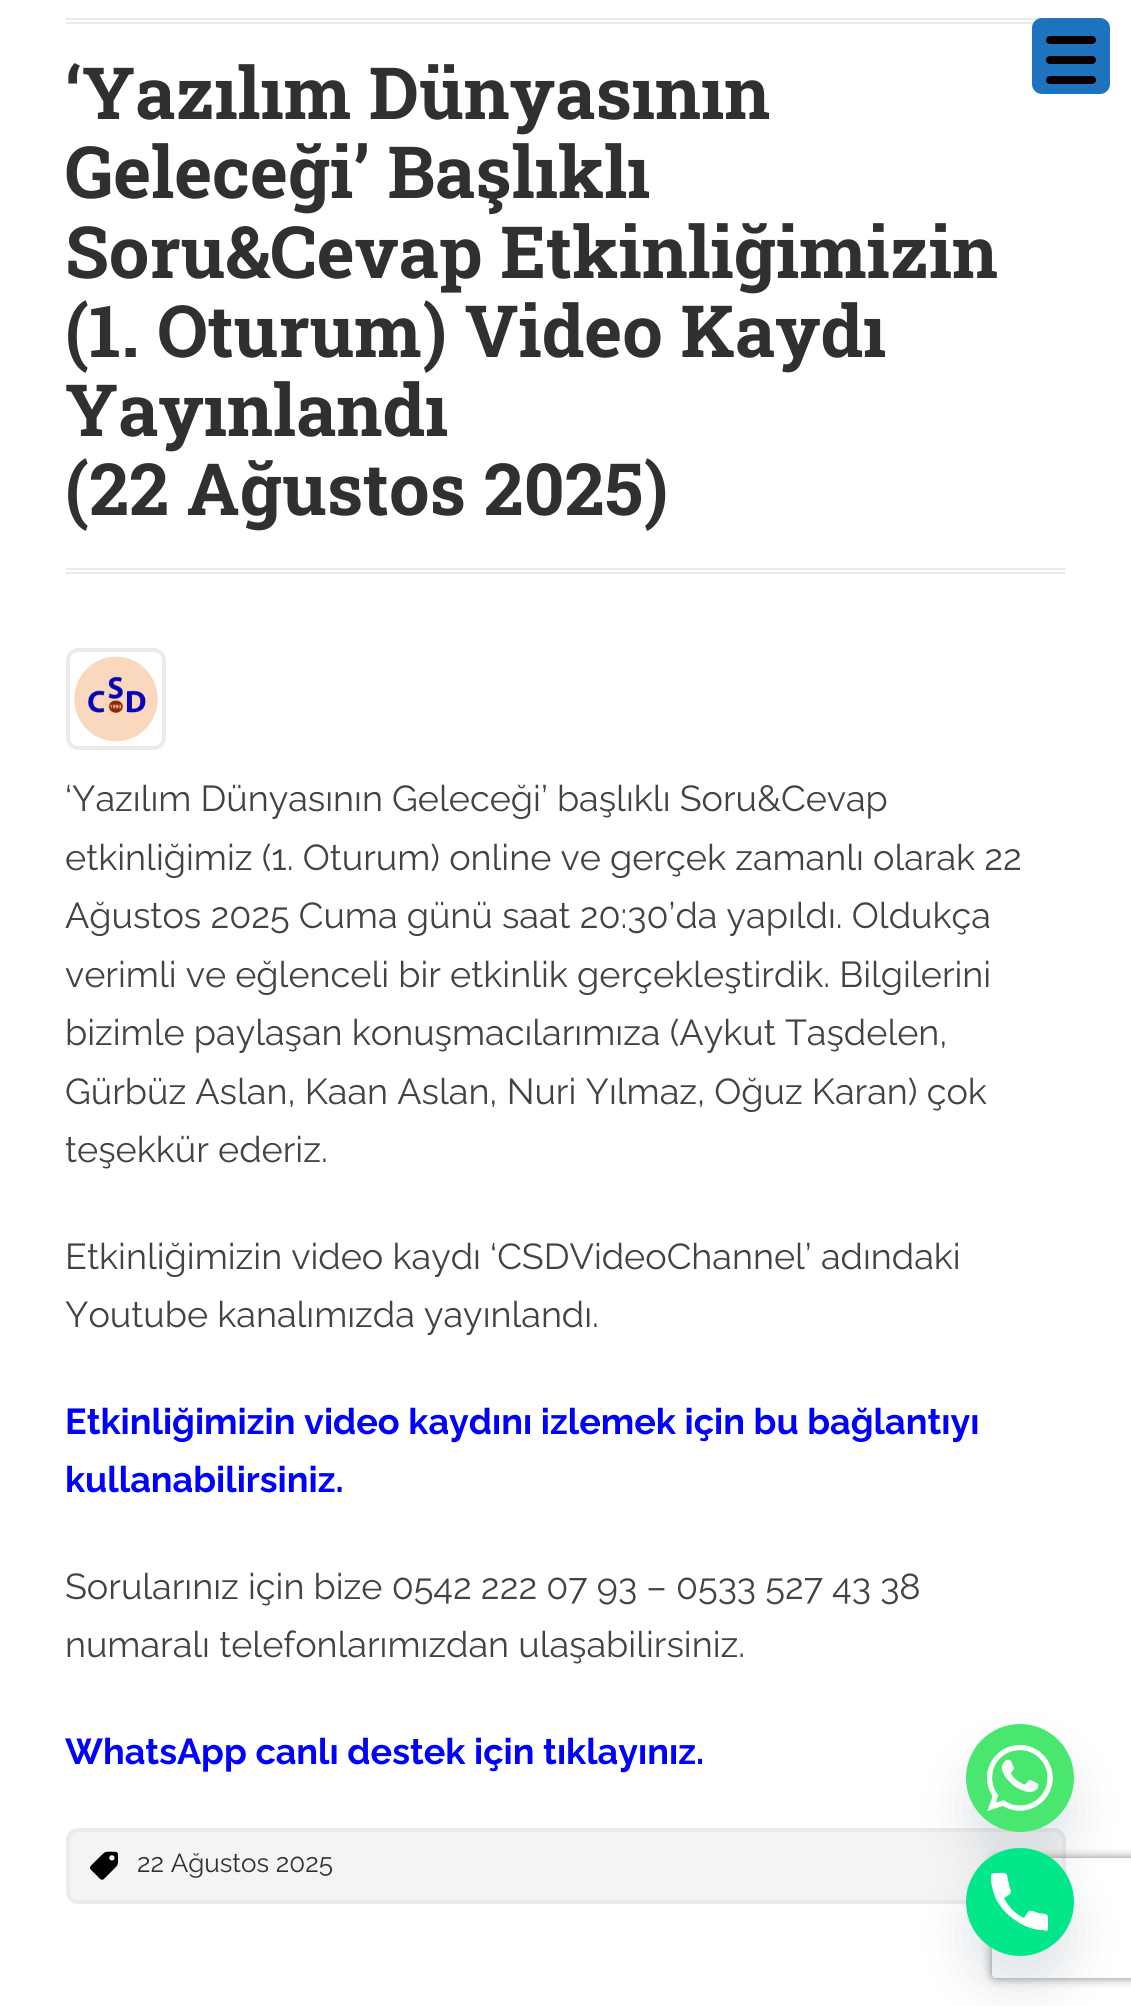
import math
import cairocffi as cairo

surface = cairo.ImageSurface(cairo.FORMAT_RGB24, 1131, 2006)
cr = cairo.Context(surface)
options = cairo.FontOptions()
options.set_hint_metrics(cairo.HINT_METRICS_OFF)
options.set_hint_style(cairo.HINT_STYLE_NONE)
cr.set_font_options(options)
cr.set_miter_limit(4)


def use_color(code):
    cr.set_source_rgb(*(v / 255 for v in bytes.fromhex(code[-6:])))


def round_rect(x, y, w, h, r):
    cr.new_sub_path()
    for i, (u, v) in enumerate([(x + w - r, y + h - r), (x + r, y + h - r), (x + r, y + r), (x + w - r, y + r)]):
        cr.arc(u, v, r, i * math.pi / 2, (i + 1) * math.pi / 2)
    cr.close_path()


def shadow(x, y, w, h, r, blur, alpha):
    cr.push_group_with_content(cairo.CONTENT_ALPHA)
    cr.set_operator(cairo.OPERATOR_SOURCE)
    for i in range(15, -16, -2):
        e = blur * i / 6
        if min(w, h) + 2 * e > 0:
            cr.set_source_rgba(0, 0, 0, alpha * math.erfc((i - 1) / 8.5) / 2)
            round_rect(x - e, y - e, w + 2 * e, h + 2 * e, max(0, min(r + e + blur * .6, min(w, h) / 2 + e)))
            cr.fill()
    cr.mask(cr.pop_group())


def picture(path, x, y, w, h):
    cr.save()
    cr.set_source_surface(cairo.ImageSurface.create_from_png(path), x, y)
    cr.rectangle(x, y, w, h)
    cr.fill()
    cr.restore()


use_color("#ffffff")
cr.paint()
use_color("#ebebeb")
cr.rectangle(66, 18, 976, 2)
cr.fill()
cr.rectangle(66, 22, 968, 2)
cr.fill()
cr.select_font_face("Roboto Slab", cairo.FONT_SLANT_NORMAL, cairo.FONT_WEIGHT_BOLD)
cr.set_font_size(72)
use_color("#303030")
cr.move_to(65, 119)
cr.show_text("‘Yazılım Dünyasının")
cr.move_to(65, 198)
cr.show_text("Geleceği’ Başlıklı")
cr.move_to(65, 278)
cr.show_text("Soru&Cevap Etkinliğimizin")
cr.move_to(65, 357)
cr.show_text("(1. Oturum) Video Kaydı")
cr.move_to(65, 436)
cr.show_text("Yayınlandı")
cr.move_to(65, 515)
cr.show_text("(22 Ağustos 2025)")
use_color("#ebebeb")
cr.rectangle(66, 568, 1000, 2)
cr.fill()
cr.rectangle(66, 572, 1000, 2)
cr.fill()
round_rect(68, 650, 96, 98, 10)
cr.set_line_width(4)
cr.stroke()
picture("img1.png", 74, 656, 84, 86)
cr.select_font_face("Raleway")
cr.set_font_size(36)
use_color("#414345")
cr.move_to(65, 811)
cr.show_text("‘Yazılım Dünyasının Geleceği’ başlıklı Soru&Cevap")
cr.move_to(65, 870)
cr.show_text("etkinliğimiz (1. Oturum) online ve gerçek zamanlı olarak 22")
cr.move_to(65, 928)
cr.show_text("Ağustos 2025 Cuma günü saat 20:30’da yapıldı. Oldukça")
cr.move_to(65, 987)
cr.show_text("verimli ve eğlenceli bir etkinlik gerçekleştirdik. Bilgilerini")
cr.move_to(65, 1045)
cr.show_text("bizimle paylaşan konuşmacılarımıza (Aykut Taşdelen,")
cr.move_to(65, 1104)
cr.show_text("Gürbüz Aslan, Kaan Aslan, Nuri Yılmaz, Oğuz Karan) çok")
cr.move_to(65, 1162)
cr.show_text("teşekkür ederiz.")
cr.move_to(65, 1269)
cr.show_text("Etkinliğimizin video kaydı ‘CSDVideoChannel’ adındaki")
cr.move_to(65, 1327)
cr.show_text("Youtube kanalımızda yayınlandı.")
cr.select_font_face("Raleway", cairo.FONT_SLANT_NORMAL, cairo.FONT_WEIGHT_BOLD)
use_color("#0000ff")
cr.move_to(65, 1434)
cr.show_text("Etkinliğimizin video kaydını izlemek için bu bağlantıyı")
cr.move_to(65, 1492)
cr.show_text("kullanabilirsiniz.")
cr.select_font_face("Raleway")
use_color("#414345")
cr.move_to(65, 1599)
cr.show_text("Sorularınız için bize 0542 222 07 93 – 0533 527 43 38")
cr.move_to(65, 1657)
cr.show_text("numaralı telefonlarımızdan ulaşabilirsiniz.")
cr.select_font_face("Raleway", cairo.FONT_SLANT_NORMAL, cairo.FONT_WEIGHT_BOLD)
use_color("#0000ff")
cr.move_to(65, 1764)
cr.show_text("WhatsApp canlı destek için tıklayınız.")
use_color("#f4f4f4")
round_rect(68, 1830, 996, 72, 10)
cr.fill_preserve()
use_color("#ebebeb")
cr.stroke()
picture("img2.png", 90, 1851, 28, 29)
cr.select_font_face("Raleway")
cr.set_font_size(26)
use_color("#303030")
cr.move_to(137, 1872)
cr.show_text("22 Ağustos 2025")
use_color("#1e73be")
round_rect(1032, 18, 78, 76, 10)
cr.fill()
use_color("#0a0000")
round_rect(1046, 56, 50, 8, 4)
cr.fill()
round_rect(1046, 36, 50, 8, 4)
cr.fill()
round_rect(1046, 76, 50, 8, 4)
cr.fill()
use_color("#49687e")
shadow(966, 1756, 108, 108, 54, 24, 0.16)
picture("img3.png", 966, 1724, 108, 108)
shadow(966, 1880, 108, 108, 54, 24, 0.16)
cr.save()
cr.set_fill_rule(cairo.FILL_RULE_EVEN_ODD)
cr.new_path()
cr.move_to(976, 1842)
cr.line_to(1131, 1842)
cr.line_to(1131, 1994)
cr.line_to(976, 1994)
cr.close_path()
cr.move_to(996, 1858)
cr.line_to(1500, 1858)
cr.curve_to(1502, 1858, 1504, 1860, 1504, 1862)
cr.line_to(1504, 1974)
cr.curve_to(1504, 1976, 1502, 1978, 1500, 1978)
cr.line_to(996, 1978)
cr.curve_to(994, 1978, 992, 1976, 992, 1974)
cr.line_to(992, 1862)
cr.curve_to(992, 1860, 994, 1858, 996, 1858)
cr.close_path()
cr.clip()
use_color("#808080")
shadow(992, 1858, 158, 120, 4, 5, 1)
cr.restore()
use_color("#03e78b")
cr.arc(1020, 1902, 54, 0, 2 * math.pi)
cr.fill()
use_color("#ffffff")
cr.new_path()
cr.move_to(1045, 1914)
cr.line_to(1038, 1913)
cr.curve_to(1035, 1912, 1030, 1909, 1028, 1912)
cr.line_to(1024, 1918)
cr.curve_to(1015, 1914, 1008, 1906, 1004, 1898)
cr.curve_to(1012, 1893, 1012, 1894, 1009, 1885)
cr.line_to(1007, 1875)
cr.curve_to(1005, 1872, 1001, 1873, 998, 1873)
cr.curve_to(990, 1873, 991, 1873, 991, 1881)
cr.curve_to(992, 1888, 994, 1894, 996, 1899)
cr.curve_to(1001, 1908, 1007, 1915, 1015, 1920)
cr.curve_to(1023, 1926, 1033, 1930, 1043, 1930)
cr.curve_to(1045, 1931, 1047, 1931, 1048, 1930)
cr.line_to(1048, 1917)
cr.curve_to(1048, 1915, 1046, 1914, 1045, 1914)
cr.close_path()
cr.fill()
surface.write_to_png("result.png")
